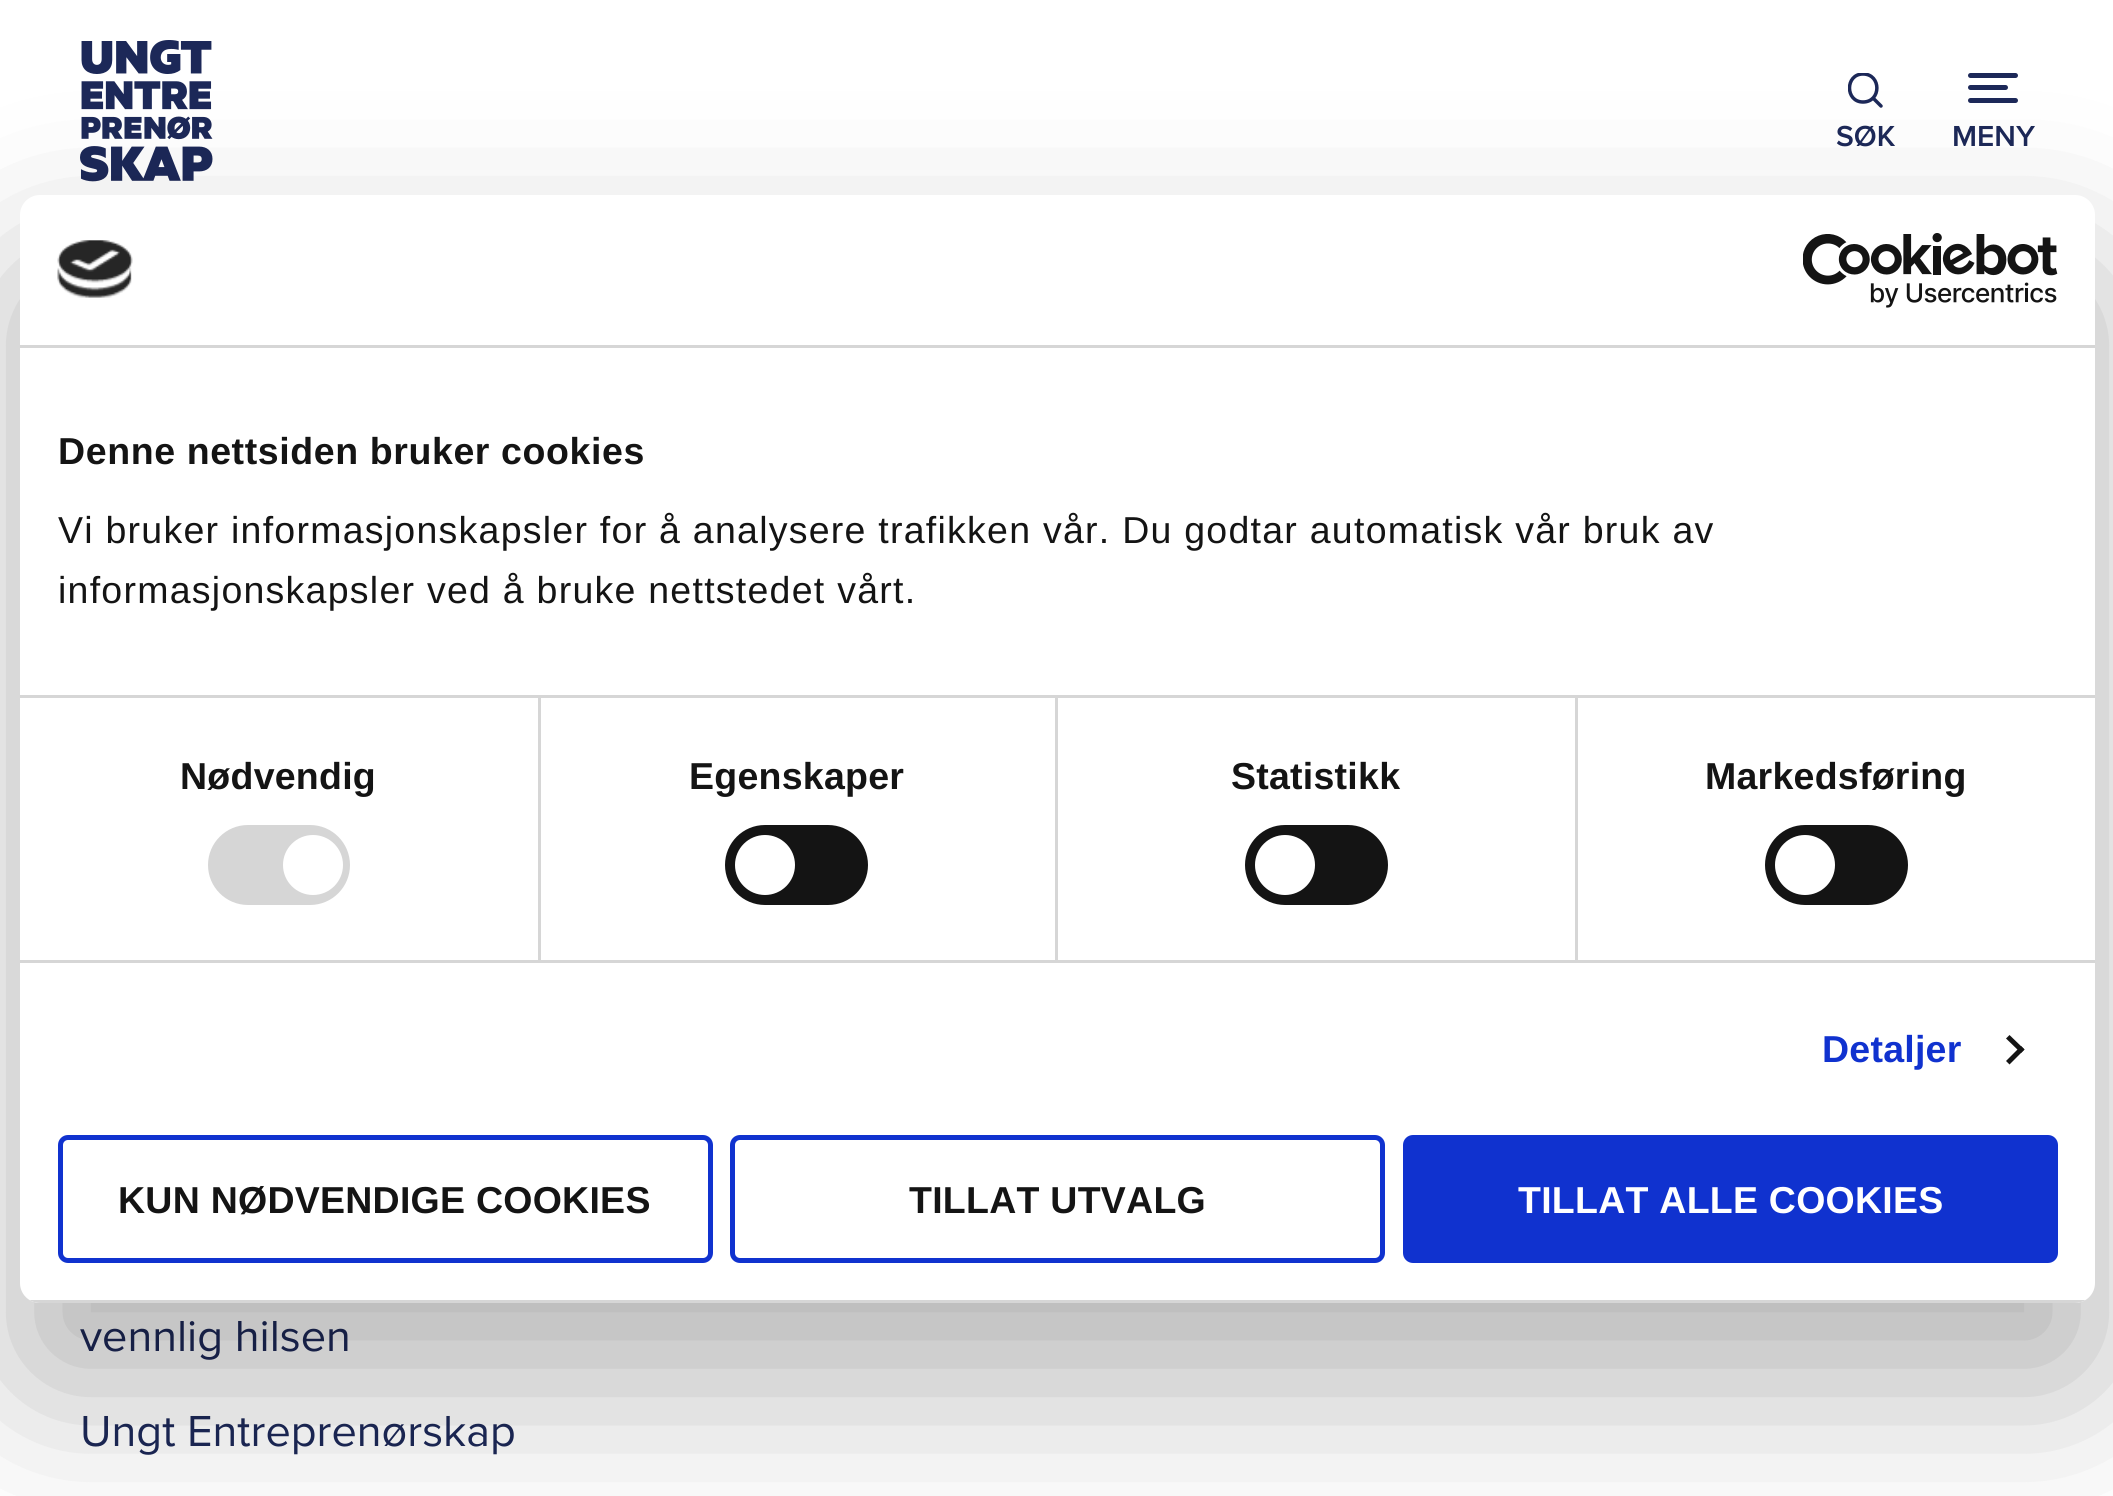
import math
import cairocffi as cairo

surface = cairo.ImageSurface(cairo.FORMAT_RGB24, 2113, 1496)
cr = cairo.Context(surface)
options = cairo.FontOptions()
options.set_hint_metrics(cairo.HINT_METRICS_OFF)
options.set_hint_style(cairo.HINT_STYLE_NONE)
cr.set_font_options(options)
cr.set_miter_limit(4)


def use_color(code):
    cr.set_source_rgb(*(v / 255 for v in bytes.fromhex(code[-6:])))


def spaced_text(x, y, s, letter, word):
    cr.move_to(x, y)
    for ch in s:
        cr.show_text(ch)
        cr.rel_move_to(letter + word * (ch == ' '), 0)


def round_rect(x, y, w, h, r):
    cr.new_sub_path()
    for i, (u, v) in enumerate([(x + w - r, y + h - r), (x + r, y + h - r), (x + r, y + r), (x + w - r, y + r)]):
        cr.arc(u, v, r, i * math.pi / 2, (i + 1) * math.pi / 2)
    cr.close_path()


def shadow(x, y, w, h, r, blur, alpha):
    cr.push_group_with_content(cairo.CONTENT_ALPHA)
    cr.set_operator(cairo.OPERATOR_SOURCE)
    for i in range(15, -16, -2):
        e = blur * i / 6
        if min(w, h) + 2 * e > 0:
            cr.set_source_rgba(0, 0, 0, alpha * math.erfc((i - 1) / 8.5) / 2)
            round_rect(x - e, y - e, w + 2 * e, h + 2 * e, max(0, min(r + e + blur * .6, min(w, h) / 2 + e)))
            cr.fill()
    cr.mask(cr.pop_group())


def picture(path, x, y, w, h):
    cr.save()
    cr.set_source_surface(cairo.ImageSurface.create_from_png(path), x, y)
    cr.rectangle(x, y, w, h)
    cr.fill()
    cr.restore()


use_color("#ffffff")
cr.paint()
picture("img1.png", 80, 40, 133, 142)
cr.save()
cr.rectangle(1848, 73, 35, 35)
cr.clip()
cr.new_path()
cr.move_to(1863, 102)
cr.curve_to(1881.5, 102, 1881.5, 74, 1863, 74)
cr.curve_to(1845, 74, 1845, 102, 1863, 102)
cr.close_path()
cr.move_to(1881, 106)
cr.line_to(1873, 98)
use_color("#1c2858")
cr.set_line_width(3.5)
cr.set_line_cap(cairo.LINE_CAP_ROUND)
cr.set_line_join(cairo.LINE_JOIN_ROUND)
cr.stroke()
cr.restore()
cr.select_font_face("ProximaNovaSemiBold")
cr.set_font_size(30)
use_color("#1c2858")
cr.move_to(1836, 146)
cr.show_text("SØK")
round_rect(1968, 73, 50, 5, 2.5)
cr.fill()
round_rect(1968, 85, 40, 5, 2.5)
cr.fill()
round_rect(1968, 98, 50, 5, 2.5)
cr.fill()
cr.move_to(1952, 146)
cr.show_text("MENY")
cr.select_font_face("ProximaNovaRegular")
cr.set_font_size(45)
cr.move_to(80, 1351)
cr.show_text("vennlig hilsen")
cr.move_to(80, 1446)
cr.show_text("Ungt Entreprenørskap")
use_color("#000000")
shadow(20, 275, 2075, 1108, 20, 85, 0.3)
use_color("#ffffff")
round_rect(20, 195, 2075, 1108, 20)
cr.fill()
use_color("#d6d6d6")
cr.rectangle(20, 345, 2075, 3)
cr.fill()
picture("img2.png", 57, 240, 76, 58)
picture("img3.png", 1803, 233, 255, 75)
cr.rectangle(20, 695, 2075, 3)
cr.fill()
cr.select_font_face("Liberation Sans", cairo.FONT_SLANT_NORMAL, cairo.FONT_WEIGHT_BOLD)
cr.set_font_size(37.5)
use_color("#141414")
spaced_text(58, 464, "Denne nettsiden bruker cookies", 0.6, 0)
cr.select_font_face("Liberation Sans")
spaced_text(58, 543, "Vi bruker informasjonskapsler for å analysere trafikken vår. Du godtar automatisk vår bruk av", 1.25, 0)
spaced_text(58, 603, "informasjonskapsler ved å bruke nettstedet vårt.", 1.25, 0)
use_color("#d6d6d6")
cr.rectangle(20, 960, 2075, 3)
cr.fill()
cr.rectangle(538, 698, 3, 262)
cr.fill()
cr.select_font_face("Liberation Sans", cairo.FONT_SLANT_NORMAL, cairo.FONT_WEIGHT_BOLD)
use_color("#141414")
spaced_text(180, 789, "Nødvendig", 0.25, 0)
use_color("#d6d6d6")
round_rect(208, 825, 142, 80, 40)
cr.fill()
use_color("#ffffff")
cr.arc(313, 865, 30, 0, 2 * math.pi)
cr.fill()
use_color("#d6d6d6")
cr.rectangle(1055, 698, 3, 262)
cr.fill()
use_color("#141414")
spaced_text(689, 789, "Egenskaper", 0.25, 0)
round_rect(725, 825, 143, 80, 40)
cr.fill()
use_color("#ffffff")
cr.arc(765, 865, 30, 0, 2 * math.pi)
cr.fill()
use_color("#d6d6d6")
cr.rectangle(1575, 698, 3, 262)
cr.fill()
use_color("#141414")
spaced_text(1231, 789, "Statistikk", 0.25, 0)
round_rect(1245, 825, 143, 80, 40)
cr.fill()
use_color("#ffffff")
cr.arc(1285, 865, 30, 0, 2 * math.pi)
cr.fill()
use_color("#141414")
spaced_text(1705, 789, "Markedsføring", 0.25, 0)
round_rect(1765, 825, 143, 80, 40)
cr.fill()
use_color("#ffffff")
cr.arc(1805, 865, 30, 0, 2 * math.pi)
cr.fill()
use_color("#1032cf")
spaced_text(1822, 1062, "Detaljer", 0.25, 0)
use_color("#141414")
cr.new_path()
cr.move_to(2009.5, 1035)
cr.line_to(2024.5, 1049.5)
cr.line_to(2021, 1053)
cr.line_to(2006, 1038.5)
cr.close_path()
cr.fill()
cr.new_path()
cr.move_to(2021, 1046)
cr.line_to(2024.5, 1049.5)
cr.line_to(2009.5, 1064.5)
cr.line_to(2006, 1061)
cr.close_path()
cr.fill()
cr.save()
round_rect(20, 195, 2075, 1108, 20)
cr.clip()
use_color("#d6d6d6")
cr.rectangle(29, 1300, 2057, 3)
cr.fill()
cr.restore()
round_rect(60.5, 1137.5, 650, 123, 7.5)
use_color("#1032cf")
cr.set_line_width(5)
cr.stroke()
use_color("#141414")
spaced_text(118, 1213, "KUN NØDVENDIGE COOKIES", 0.25, 0)
round_rect(732.5, 1137.5, 650, 123, 7.5)
use_color("#1032cf")
cr.stroke()
use_color("#141414")
spaced_text(909, 1213, "TILLAT UTVALG", 0.25, 0)
use_color("#1032cf")
round_rect(1405.5, 1137.5, 650, 123, 7.5)
cr.fill_preserve()
cr.stroke()
use_color("#ffffff")
spaced_text(1518, 1213, "TILLAT ALLE COOKIES", 0.25, 0)
surface.write_to_png("result.png")
